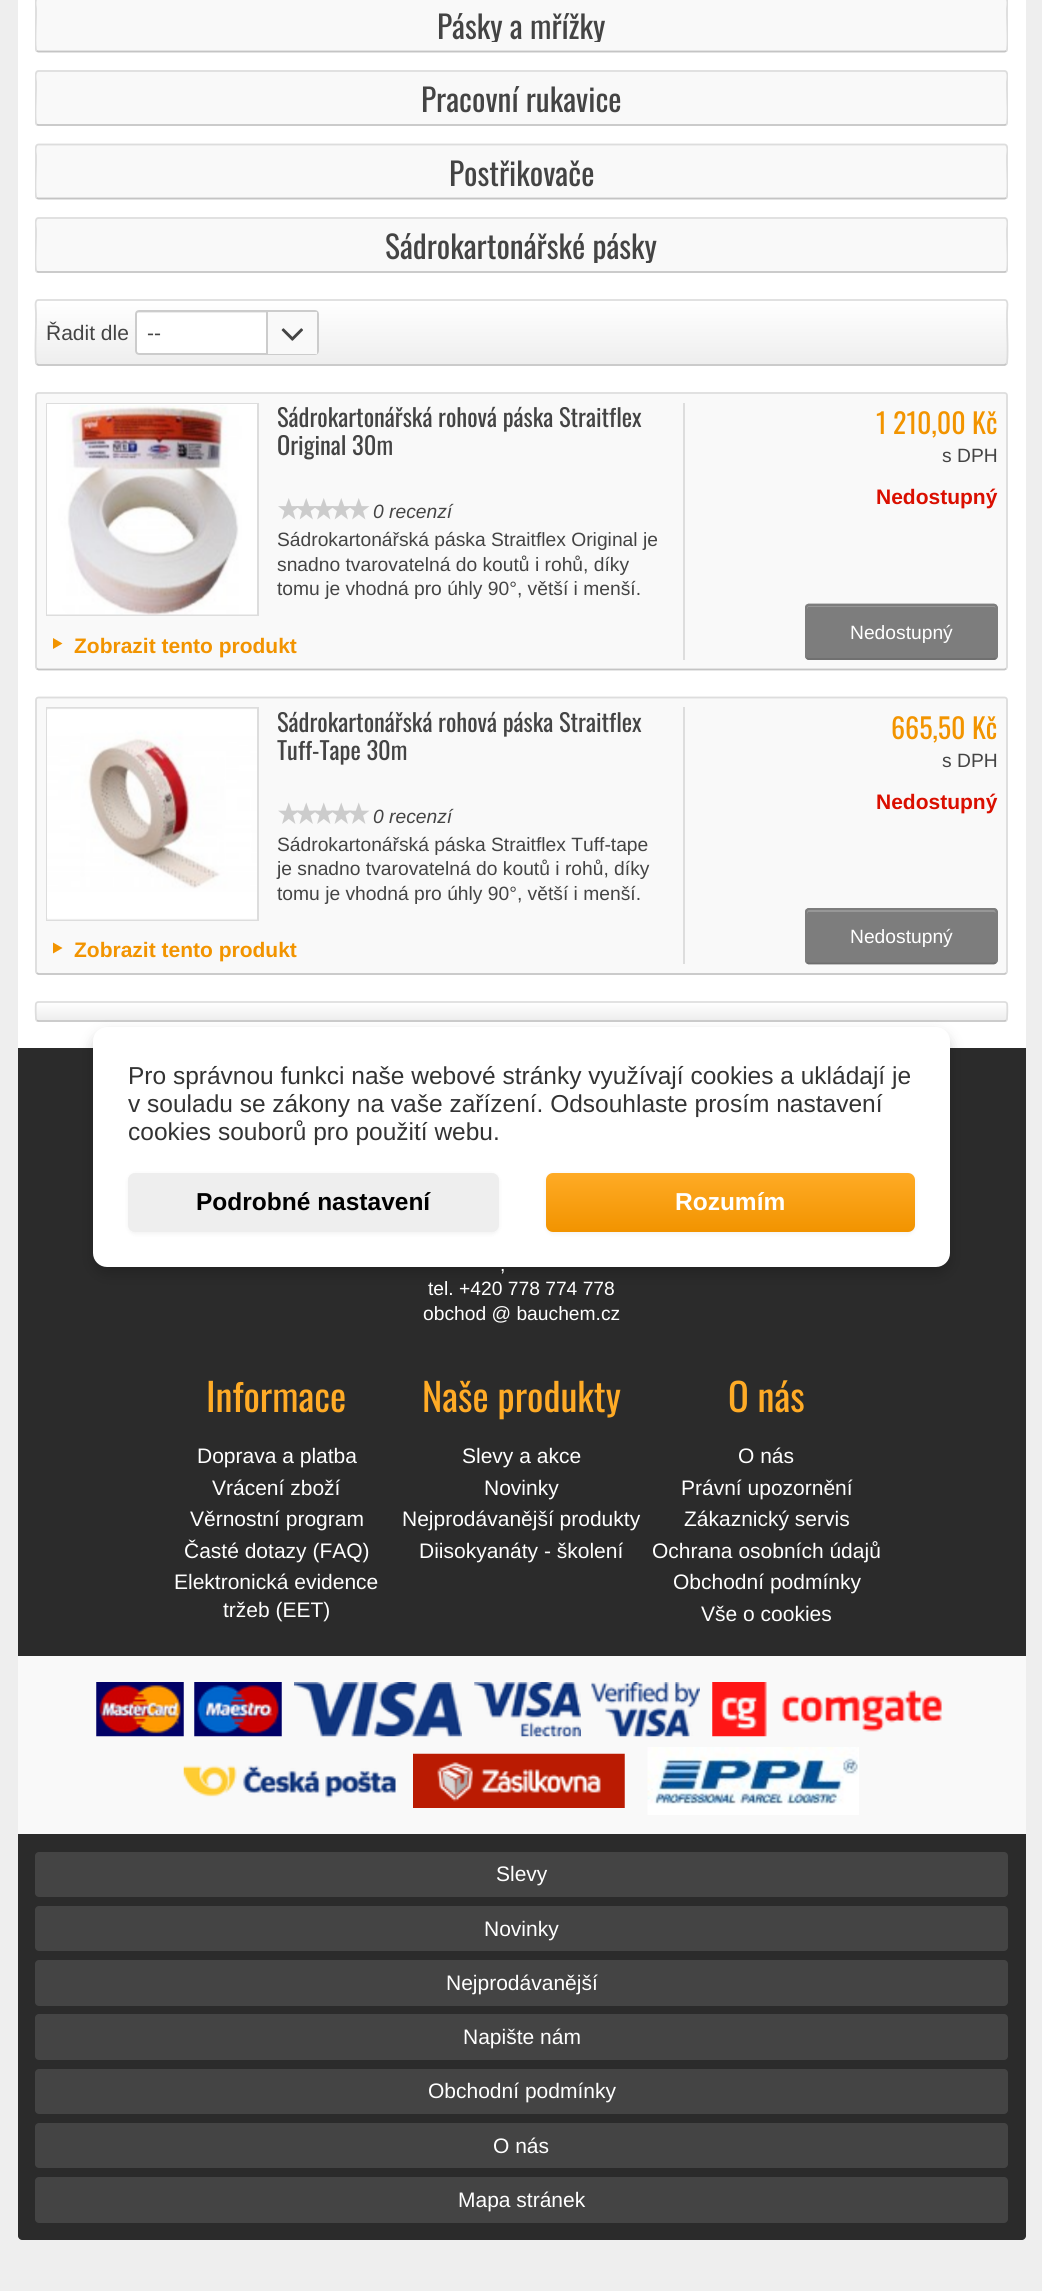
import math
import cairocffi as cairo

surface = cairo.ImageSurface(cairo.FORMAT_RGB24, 1042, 2291)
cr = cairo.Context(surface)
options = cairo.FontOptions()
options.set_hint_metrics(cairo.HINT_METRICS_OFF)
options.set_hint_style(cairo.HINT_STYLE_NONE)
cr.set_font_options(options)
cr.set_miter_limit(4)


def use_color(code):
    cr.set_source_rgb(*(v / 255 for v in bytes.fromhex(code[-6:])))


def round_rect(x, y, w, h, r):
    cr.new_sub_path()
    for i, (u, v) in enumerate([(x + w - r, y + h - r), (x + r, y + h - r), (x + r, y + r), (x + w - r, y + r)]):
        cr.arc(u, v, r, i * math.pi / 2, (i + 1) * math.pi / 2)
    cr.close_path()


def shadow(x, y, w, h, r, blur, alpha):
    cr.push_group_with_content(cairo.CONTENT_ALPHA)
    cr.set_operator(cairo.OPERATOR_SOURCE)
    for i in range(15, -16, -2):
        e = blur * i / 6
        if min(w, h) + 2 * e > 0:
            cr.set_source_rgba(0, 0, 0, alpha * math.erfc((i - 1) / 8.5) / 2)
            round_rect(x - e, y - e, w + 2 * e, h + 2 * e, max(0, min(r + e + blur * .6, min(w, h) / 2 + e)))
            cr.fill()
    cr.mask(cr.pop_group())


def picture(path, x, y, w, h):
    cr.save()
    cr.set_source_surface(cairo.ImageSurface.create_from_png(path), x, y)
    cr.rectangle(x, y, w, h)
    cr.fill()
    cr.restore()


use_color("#eeeeee")
cr.paint()
use_color("#ffffff")
cr.rectangle(18, 0, 1008, 1048)
cr.fill()
use_color("#f9f9f9")
round_rect(35, -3, 973, 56, 4)
cr.fill()
cr.new_path()
cr.move_to(1006.5, 51)
cr.line_to(1004.5, 51.5)
cr.line_to(38.5, 51.5)
cr.line_to(36.5, 51)
use_color("#c4c4c4")
cr.set_line_width(1.8)
cr.stroke()
cr.save()
cr.rectangle(35, 0, 973, 282)
cr.clip()
cr.new_path()
cr.move_to(36.5, 51)
cr.curve_to(34.5, 49, 36, 21, 36, 16.5)
cr.line_to(36, 8)
cr.curve_to(36, 7.5, 34, -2.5, 38.5, -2.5)
cr.line_to(1004.5, -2.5)
cr.curve_to(1009, -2.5, 1007, 7.5, 1007, 8)
cr.line_to(1007, 16.5)
cr.curve_to(1007, 21, 1008.5, 49, 1006.5, 51)
use_color("#dddddd")
cr.stroke()
cr.restore()
cr.save()
cr.rectangle(46, 7, 952, 35)
cr.clip()
cr.select_font_face("Oswald")
cr.set_font_size(31.5)
use_color("#444444")
cr.move_to(437, 39)
cr.show_text("Pásky a mřížky")
cr.restore()
use_color("#f9f9f9")
round_rect(35, 70, 973, 56, 4)
cr.fill()
cr.new_path()
cr.move_to(1006.5, 124.5)
cr.line_to(1004.5, 125)
cr.line_to(38.5, 125)
cr.line_to(36.5, 124.5)
use_color("#c4c4c4")
cr.stroke()
cr.save()
cr.rectangle(35, 0, 973, 282)
cr.clip()
cr.new_path()
cr.move_to(36.5, 124.5)
cr.curve_to(34.5, 122.5, 36, 94.5, 36, 90)
cr.line_to(36, 81.5)
cr.curve_to(36, 81, 34, 71, 38.5, 71)
cr.line_to(1004.5, 71)
cr.curve_to(1009, 71, 1007, 81, 1007, 81.5)
cr.line_to(1007, 90)
cr.curve_to(1007, 94.5, 1008.5, 122.5, 1006.5, 124.5)
use_color("#dddddd")
cr.stroke()
cr.restore()
cr.select_font_face("Oswald")
cr.set_font_size(31.5)
use_color("#444444")
cr.move_to(421, 112)
cr.show_text("Pracovní rukavice")
use_color("#f9f9f9")
round_rect(35, 144, 973, 56, 4)
cr.fill()
cr.new_path()
cr.move_to(1006.5, 198)
cr.line_to(1004.5, 198.5)
cr.line_to(38.5, 198.5)
cr.line_to(36.5, 198)
use_color("#c4c4c4")
cr.stroke()
cr.save()
cr.rectangle(35, 0, 973, 282)
cr.clip()
cr.new_path()
cr.move_to(36.5, 198)
cr.curve_to(34.5, 196, 36, 168, 36, 163.5)
cr.line_to(36, 155)
cr.curve_to(36, 154.5, 34, 144.5, 38.5, 144.5)
cr.line_to(1004.5, 144.5)
cr.curve_to(1009, 144.5, 1007, 154.5, 1007, 155)
cr.line_to(1007, 163.5)
cr.curve_to(1007, 168, 1008.5, 196, 1006.5, 198)
use_color("#dddddd")
cr.stroke()
cr.restore()
use_color("#444444")
cr.move_to(449, 186)
cr.show_text("Postřikovače")
use_color("#f9f9f9")
round_rect(35, 217, 973, 56, 4)
cr.fill()
cr.new_path()
cr.move_to(1006.5, 271.5)
cr.line_to(1004.5, 272)
cr.line_to(38.5, 272)
cr.line_to(36.5, 271.5)
use_color("#c4c4c4")
cr.stroke()
cr.save()
cr.rectangle(35, 0, 973, 282)
cr.clip()
cr.new_path()
cr.move_to(36.5, 271.5)
cr.curve_to(34.5, 269.5, 36, 241.5, 36, 237)
cr.line_to(36, 228.5)
cr.curve_to(36, 228, 34, 218, 38.5, 218)
cr.line_to(1004.5, 218)
cr.curve_to(1009, 218, 1007, 228, 1007, 228.5)
cr.line_to(1007, 237)
cr.curve_to(1007, 241.5, 1008.5, 269.5, 1006.5, 271.5)
use_color("#dddddd")
cr.stroke()
cr.restore()
cr.save()
cr.rectangle(46, 228, 952, 35)
cr.clip()
use_color("#444444")
cr.move_to(385, 259)
cr.show_text("Sádrokartonářské pásky")
cr.restore()
use_color("#f8f8f8")
round_rect(35, 299, 973, 67, 4)
cr.fill()
cr.save()
round_rect(35, 299, 973, 67, 4)
cr.clip()
gradient = cairo.LinearGradient(522, 301, 522, 364)
gradient.add_color_stop_rgba(0, 1, 1, 1, 1)
gradient.add_color_stop_rgba(1, 0.933, 0.933, 0.933, 1)
cr.set_source(gradient)
cr.rectangle(35, 301, 973, 63)
cr.fill()
cr.restore()
cr.new_path()
cr.move_to(1006.5, 364)
cr.line_to(1004.5, 365)
cr.line_to(38.5, 365)
cr.line_to(36.5, 364)
use_color("#c4c4c4")
cr.stroke()
cr.new_path()
cr.move_to(36.5, 364)
cr.curve_to(34.5, 362, 36, 327.5, 36, 322.5)
cr.line_to(36, 312.5)
cr.curve_to(36, 308, 34, 300, 38.5, 300)
cr.line_to(1004.5, 300)
cr.curve_to(1009, 300, 1007, 308, 1007, 312.5)
cr.line_to(1007, 322.5)
cr.curve_to(1007, 327.5, 1008.5, 362, 1006.5, 364)
use_color("#dddddd")
cr.stroke()
cr.select_font_face("Liberation Sans")
cr.set_font_size(21)
use_color("#444444")
cr.move_to(46, 340)
cr.show_text("Řadit dle")
use_color("#ffffff")
round_rect(135, 310, 184, 45, 4)
cr.fill()
use_color("#ececec")
cr.new_path()
cr.move_to(138, 313)
cr.line_to(315, 313)
cr.curve_to(316, 313, 317, 314, 317, 315)
cr.line_to(317, 314)
cr.curve_to(317, 313, 316, 312, 315, 312)
cr.line_to(139, 312)
cr.curve_to(138, 312, 137, 313, 137, 313)
cr.close_path()
cr.fill()
round_rect(136, 311, 182, 43, 3)
use_color("#cccccc")
cr.set_line_width(2)
cr.stroke()
use_color("#444444")
cr.move_to(147, 340)
cr.show_text("--")
use_color("#f9f9f9")
cr.rectangle(268, 312, 49, 42)
cr.fill()
use_color("#cccccc")
cr.rectangle(266, 312, 2, 42)
cr.fill()
picture("img1.png", 281, 328, 22, 13)
use_color("#f9f9f9")
round_rect(35, 392, 973, 278, 4)
cr.fill()
cr.new_path()
cr.move_to(1006.5, 668.5)
cr.line_to(1004.5, 669.5)
cr.line_to(38.5, 669.5)
cr.line_to(36.5, 668.5)
use_color("#c4c4c4")
cr.set_line_width(1.8)
cr.stroke()
cr.new_path()
cr.move_to(36.5, 668.5)
cr.line_to(36, 667)
cr.line_to(36, 395.5)
cr.curve_to(36, 394, 37, 393, 38.5, 393)
cr.line_to(1004.5, 393)
cr.curve_to(1006, 393, 1007, 394, 1007, 395.5)
cr.line_to(1007, 667)
cr.line_to(1006.5, 668.5)
use_color("#dddddd")
cr.stroke()
cr.rectangle(683, 403, 2, 257)
cr.fill()
cr.rectangle(47, 404, 211, 211)
cr.set_line_width(2)
cr.stroke()
use_color("#ffffff")
cr.rectangle(47, 404, 210, 1)
cr.fill()
picture("img2.png", 47, 405, 210, 210)
cr.select_font_face("Oswald")
cr.set_font_size(24.5)
use_color("#444444")
cr.move_to(277, 427)
cr.show_text("Sádrokartonářská rohová páska Straitflex")
cr.move_to(277, 455)
cr.show_text("Original 30m")
picture("img3.png", 278, 498, 22, 22)
picture("img4.png", 296, 498, 21, 22)
picture("img5.png", 314, 498, 21, 22)
picture("img4.png", 331, 498, 21, 22)
picture("img5.png", 349, 498, 21, 22)
cr.select_font_face("Liberation Sans", cairo.FONT_SLANT_ITALIC)
cr.set_font_size(19.25)
cr.move_to(373, 518)
cr.show_text("0 recenzí")
cr.select_font_face("Liberation Sans")
cr.move_to(277, 546)
cr.show_text("Sádrokartonářská páska Straitflex Original je")
cr.move_to(277, 571)
cr.show_text("snadno tvarovatelná do koutů i rohů, díky")
cr.move_to(277, 595)
cr.show_text("tomu je vhodná pro úhly 90°, větší i menší.")
use_color("#f29400")
cr.new_path()
cr.move_to(53, 638)
cr.line_to(53, 649)
cr.line_to(62.5, 643.5)
cr.close_path()
cr.fill()
cr.select_font_face("Liberation Sans", cairo.FONT_SLANT_NORMAL, cairo.FONT_WEIGHT_BOLD)
cr.set_font_size(21)
cr.move_to(74, 653)
cr.show_text("Zobrazit tento produkt")
cr.select_font_face("Oswald")
cr.set_font_size(28)
cr.move_to(876, 434)
cr.show_text("1 210,00 Kč")
cr.select_font_face("Liberation Sans")
cr.set_font_size(19.25)
use_color("#444444")
cr.move_to(942, 462)
cr.show_text("s DPH")
cr.select_font_face("Liberation Sans", cairo.FONT_SLANT_NORMAL, cairo.FONT_WEIGHT_BOLD)
cr.set_font_size(21)
use_color("#da0f00")
cr.move_to(876, 504)
cr.show_text("Nedostupný")
use_color("#7d7d7d")
round_rect(805, 604, 193, 56, 4)
cr.fill()
use_color("#979797")
cr.new_path()
cr.move_to(808, 607)
cr.line_to(994, 607)
cr.line_to(996, 608)
cr.line_to(996, 609)
cr.line_to(996, 608)
cr.curve_to(996, 607, 995, 606, 994, 606)
cr.line_to(809, 606)
cr.curve_to(808, 606, 807, 607, 807, 608)
cr.line_to(807, 609)
cr.close_path()
cr.fill()
cr.new_path()
cr.move_to(996, 658)
cr.line_to(994, 659)
cr.line_to(808.5, 659)
cr.line_to(806.5, 658)
use_color("#6e6e6e")
cr.set_line_width(1.8)
cr.stroke()
cr.new_path()
cr.move_to(806.5, 658)
cr.line_to(806, 656)
cr.line_to(806, 607)
cr.line_to(806.5, 605.5)
cr.line_to(808.5, 604.5)
cr.line_to(994, 604.5)
cr.line_to(996, 605.5)
cr.line_to(996.5, 607)
cr.line_to(996.5, 656)
cr.line_to(996, 658)
use_color("#7d7d7d")
cr.stroke()
cr.select_font_face("Liberation Sans")
cr.set_font_size(19.25)
use_color("#ffffff")
cr.move_to(850, 639)
cr.show_text("Nedostupný")
use_color("#f9f9f9")
round_rect(35, 697, 973, 278, 4)
cr.fill()
cr.new_path()
cr.move_to(1006.5, 973)
cr.line_to(1004.5, 974)
cr.line_to(38.5, 974)
cr.line_to(36.5, 973)
use_color("#c4c4c4")
cr.stroke()
cr.new_path()
cr.move_to(36.5, 973)
cr.line_to(36, 971.5)
cr.line_to(36, 700)
cr.curve_to(36, 698.5, 37, 697.5, 38.5, 697.5)
cr.line_to(1004.5, 697.5)
cr.curve_to(1006, 697.5, 1007, 698.5, 1007, 700)
cr.line_to(1007, 971.5)
cr.line_to(1006.5, 973)
use_color("#dddddd")
cr.stroke()
cr.rectangle(683, 707, 2, 257)
cr.fill()
cr.rectangle(47, 708, 211, 212)
cr.set_line_width(2)
cr.stroke()
picture("img6.png", 47, 708, 210, 212)
cr.select_font_face("Oswald")
cr.set_font_size(24.5)
use_color("#444444")
cr.move_to(277, 732)
cr.show_text("Sádrokartonářská rohová páska Straitflex")
cr.move_to(277, 760)
cr.show_text("Tuff-Tape 30m")
picture("img7.png", 278, 802, 22, 22)
picture("img8.png", 296, 802, 21, 22)
picture("img9.png", 313, 802, 22, 22)
picture("img8.png", 331, 802, 21, 22)
picture("img9.png", 348, 802, 22, 22)
cr.select_font_face("Liberation Sans", cairo.FONT_SLANT_ITALIC)
cr.set_font_size(19.25)
cr.move_to(373, 823)
cr.show_text("0 recenzí")
cr.select_font_face("Liberation Sans")
cr.move_to(277, 851)
cr.show_text("Sádrokartonářská páska Straitflex Tuff-tape")
cr.move_to(277, 875)
cr.show_text("je snadno tvarovatelná do koutů i rohů, díky")
cr.move_to(277, 900)
cr.show_text("tomu je vhodná pro úhly 90°, větší i menší.")
use_color("#f29400")
cr.new_path()
cr.move_to(53, 942.5)
cr.line_to(53, 953.5)
cr.line_to(62.5, 948)
cr.close_path()
cr.fill()
cr.select_font_face("Liberation Sans", cairo.FONT_SLANT_NORMAL, cairo.FONT_WEIGHT_BOLD)
cr.set_font_size(21)
cr.move_to(74, 957)
cr.show_text("Zobrazit tento produkt")
cr.select_font_face("Oswald")
cr.set_font_size(28)
cr.move_to(891, 739)
cr.show_text("665,50 Kč")
cr.select_font_face("Liberation Sans")
cr.set_font_size(19.25)
use_color("#444444")
cr.move_to(942, 767)
cr.show_text("s DPH")
cr.select_font_face("Liberation Sans", cairo.FONT_SLANT_NORMAL, cairo.FONT_WEIGHT_BOLD)
cr.set_font_size(21)
use_color("#da0f00")
cr.move_to(876, 809)
cr.show_text("Nedostupný")
use_color("#7d7d7d")
round_rect(805, 908, 193, 56, 4)
cr.fill()
use_color("#979797")
cr.new_path()
cr.move_to(808, 912)
cr.line_to(994, 912)
cr.line_to(996, 913)
cr.line_to(996, 914)
cr.curve_to(996, 913, 996, 910, 994, 910)
cr.line_to(808, 910)
cr.curve_to(807, 911, 807, 913, 807, 914)
cr.close_path()
cr.fill()
cr.new_path()
cr.move_to(996, 962.5)
cr.line_to(994, 963.5)
cr.line_to(808.5, 963.5)
cr.line_to(806.5, 962.5)
use_color("#6e6e6e")
cr.set_line_width(1.8)
cr.stroke()
cr.new_path()
cr.move_to(806.5, 962.5)
cr.line_to(806, 961)
cr.line_to(806, 912)
cr.line_to(806.5, 910)
cr.line_to(808.5, 909)
cr.line_to(994, 909)
cr.line_to(996, 910)
cr.line_to(996.5, 912)
cr.line_to(996.5, 961)
cr.line_to(996, 962.5)
use_color("#7d7d7d")
cr.stroke()
cr.select_font_face("Liberation Sans")
cr.set_font_size(19.25)
use_color("#ffffff")
cr.move_to(850, 943)
cr.show_text("Nedostupný")
cr.save()
round_rect(35, 1001, 973, 21, 4)
cr.clip()
gradient = cairo.LinearGradient(522, 1003, 522, 1020)
gradient.add_color_stop_rgba(0, 1, 1, 1, 1)
gradient.add_color_stop_rgba(1, 0.933, 0.933, 0.933, 1)
cr.set_source(gradient)
cr.rectangle(35, 1003, 973, 17)
cr.fill()
cr.restore()
cr.new_path()
cr.move_to(1006.5, 1020.5)
cr.line_to(1004.5, 1021)
cr.line_to(38.5, 1021)
cr.line_to(36.5, 1020.5)
use_color("#c4c4c4")
cr.stroke()
cr.new_path()
cr.move_to(36.5, 1020.5)
cr.curve_to(35.5, 1019, 35.5, 1004.5, 36, 1003.5)
cr.curve_to(36.5, 1002.5, 37.5, 1002, 38.5, 1002)
cr.line_to(1004.5, 1002)
cr.curve_to(1005.5, 1002, 1006.5, 1002.5, 1007, 1003.5)
cr.curve_to(1007.5, 1004.5, 1007.5, 1019, 1006.5, 1020.5)
use_color("#dddddd")
cr.stroke()
use_color("#2b2b2b")
cr.new_path()
cr.move_to(18, 1048)
cr.line_to(1026, 1048)
cr.line_to(1026, 2236)
cr.curve_to(1026, 2238, 1024, 2240, 1022, 2240)
cr.line_to(22, 2240)
cr.curve_to(20, 2240, 18, 2238, 18, 2236)
cr.close_path()
cr.fill()
use_color("#000000")
shadow(93, 1034, 857, 240, 14, 7, 0.2)
use_color("#ffffff")
round_rect(93, 1027, 857, 240, 14)
cr.fill()
cr.set_font_size(24.5)
use_color("#333333")
cr.move_to(128, 1084)
cr.show_text("Pro správnou funkci naše webové stránky využívají cookies a ukládají je")
cr.move_to(128, 1112)
cr.show_text("v souladu se zákony na vaše zařízení. Odsouhlaste prosím nastavení")
cr.move_to(128, 1140)
cr.show_text("cookies souborů pro použití webu.")
use_color("#000000")
shadow(128, 1174, 371, 60, 7, 2, 0.05)
use_color("#eeeeee")
round_rect(128, 1173, 371, 59, 7)
cr.fill()
cr.select_font_face("Liberation Sans", cairo.FONT_SLANT_NORMAL, cairo.FONT_WEIGHT_BOLD)
use_color("#000000")
cr.move_to(196, 1210)
cr.show_text("Podrobné nastavení")
use_color("#000000")
shadow(546, 1174, 369, 60, 7, 2, 0.05)
gradient = cairo.LinearGradient(731, 1172, 731, 1231)
gradient.add_color_stop_rgba(0, 1, 0.671, 0.149, 1)
gradient.add_color_stop_rgba(1, 0.949, 0.58, 0, 1)
cr.set_source(gradient)
round_rect(546, 1173, 369, 59, 7)
cr.fill()
cr.set_source_rgba(1, 1, 1, 0.2)
cr.set_fill_rule(cairo.FILL_RULE_EVEN_ODD)
cr.new_path()
cr.move_to(553, 1173)
cr.curve_to(549, 1173, 546, 1176, 546, 1180)
cr.curve_to(546, 1177, 549, 1173, 553, 1173)
cr.close_path()
cr.move_to(908, 1173)
cr.curve_to(912, 1173, 915, 1177, 915, 1180)
cr.curve_to(915, 1176, 912, 1173, 908, 1173)
cr.close_path()
cr.fill()
use_color("#ffffff")
cr.move_to(675, 1210)
cr.show_text("Rozumím")
cr.select_font_face("Liberation Sans")
cr.set_font_size(19.25)
cr.move_to(500, 1271)
cr.show_text(",")
cr.move_to(428, 1295)
cr.show_text("tel. +420 778 774 778")
cr.move_to(423, 1320)
cr.show_text("obchod @ bauchem.cz")
cr.select_font_face("Oswald")
cr.set_font_size(38.5)
use_color("#ffab26")
cr.move_to(206, 1412)
cr.show_text("Informace")
cr.select_font_face("Liberation Sans")
cr.set_font_size(21)
use_color("#ffffff")
cr.move_to(197, 1463)
cr.show_text("Doprava a platba")
cr.move_to(212, 1495)
cr.show_text("Vrácení zboží")
cr.move_to(190, 1526)
cr.show_text("Věrnostní program")
cr.move_to(184, 1558)
cr.show_text("Časté dotazy (FAQ)")
cr.move_to(174, 1589)
cr.show_text("Elektronická evidence")
cr.move_to(223, 1617)
cr.show_text("tržeb (EET)")
cr.select_font_face("Oswald")
cr.set_font_size(38.5)
use_color("#ffab26")
cr.move_to(422, 1412)
cr.show_text("Naše produkty")
cr.select_font_face("Liberation Sans")
cr.set_font_size(21)
use_color("#ffffff")
cr.move_to(462, 1463)
cr.show_text("Slevy a akce")
cr.move_to(484, 1495)
cr.show_text("Novinky")
cr.move_to(402, 1526)
cr.show_text("Nejprodávanější produkty")
cr.move_to(419, 1558)
cr.show_text("Diisokyanáty - školení")
cr.select_font_face("Oswald")
cr.set_font_size(38.5)
use_color("#ffab26")
cr.move_to(728, 1412)
cr.show_text("O nás")
cr.select_font_face("Liberation Sans")
cr.set_font_size(21)
use_color("#ffffff")
cr.move_to(738, 1463)
cr.show_text("O nás")
cr.move_to(681, 1495)
cr.show_text("Právní upozornění")
cr.move_to(684, 1526)
cr.show_text("Zákaznický servis")
cr.move_to(652, 1558)
cr.show_text("Ochrana osobních údajů")
cr.move_to(673, 1589)
cr.show_text("Obchodní podmínky")
cr.move_to(701, 1621)
cr.show_text("Vše o cookies")
use_color("#f9f9f9")
cr.rectangle(18, 1656, 1008, 178)
cr.fill()
picture("img10.png", 96, 1682, 88, 55)
picture("img11.png", 194, 1682, 88, 55)
picture("img12.png", 294, 1682, 168, 55)
picture("img13.png", 474, 1682, 107, 55)
picture("img14.png", 591, 1682, 109, 55)
picture("img15.png", 712, 1682, 230, 55)
picture("img16.png", 183, 1765, 213, 33)
picture("img17.png", 413, 1753, 212, 55)
picture("img18.png", 647, 1747, 212, 68)
use_color("#444444")
round_rect(35, 1852, 973, 45, 4)
cr.fill()
use_color("#ffffff")
cr.move_to(496, 1881)
cr.show_text("Slevy")
use_color("#444444")
round_rect(35, 1906, 973, 45, 4)
cr.fill()
use_color("#ffffff")
cr.move_to(484, 1936)
cr.show_text("Novinky")
use_color("#444444")
round_rect(35, 1960, 973, 46, 4)
cr.fill()
use_color("#ffffff")
cr.move_to(446, 1990)
cr.show_text("Nejprodávanější")
use_color("#444444")
round_rect(35, 2014, 973, 46, 4)
cr.fill()
use_color("#ffffff")
cr.move_to(463, 2044)
cr.show_text("Napište nám")
use_color("#444444")
round_rect(35, 2069, 973, 45, 4)
cr.fill()
use_color("#ffffff")
cr.move_to(428, 2098)
cr.show_text("Obchodní podmínky")
use_color("#444444")
round_rect(35, 2123, 973, 45, 4)
cr.fill()
use_color("#ffffff")
cr.move_to(493, 2153)
cr.show_text("O nás")
use_color("#444444")
round_rect(35, 2177, 973, 46, 4)
cr.fill()
use_color("#ffffff")
cr.move_to(458, 2207)
cr.show_text("Mapa stránek")
surface.write_to_png("result.png")
